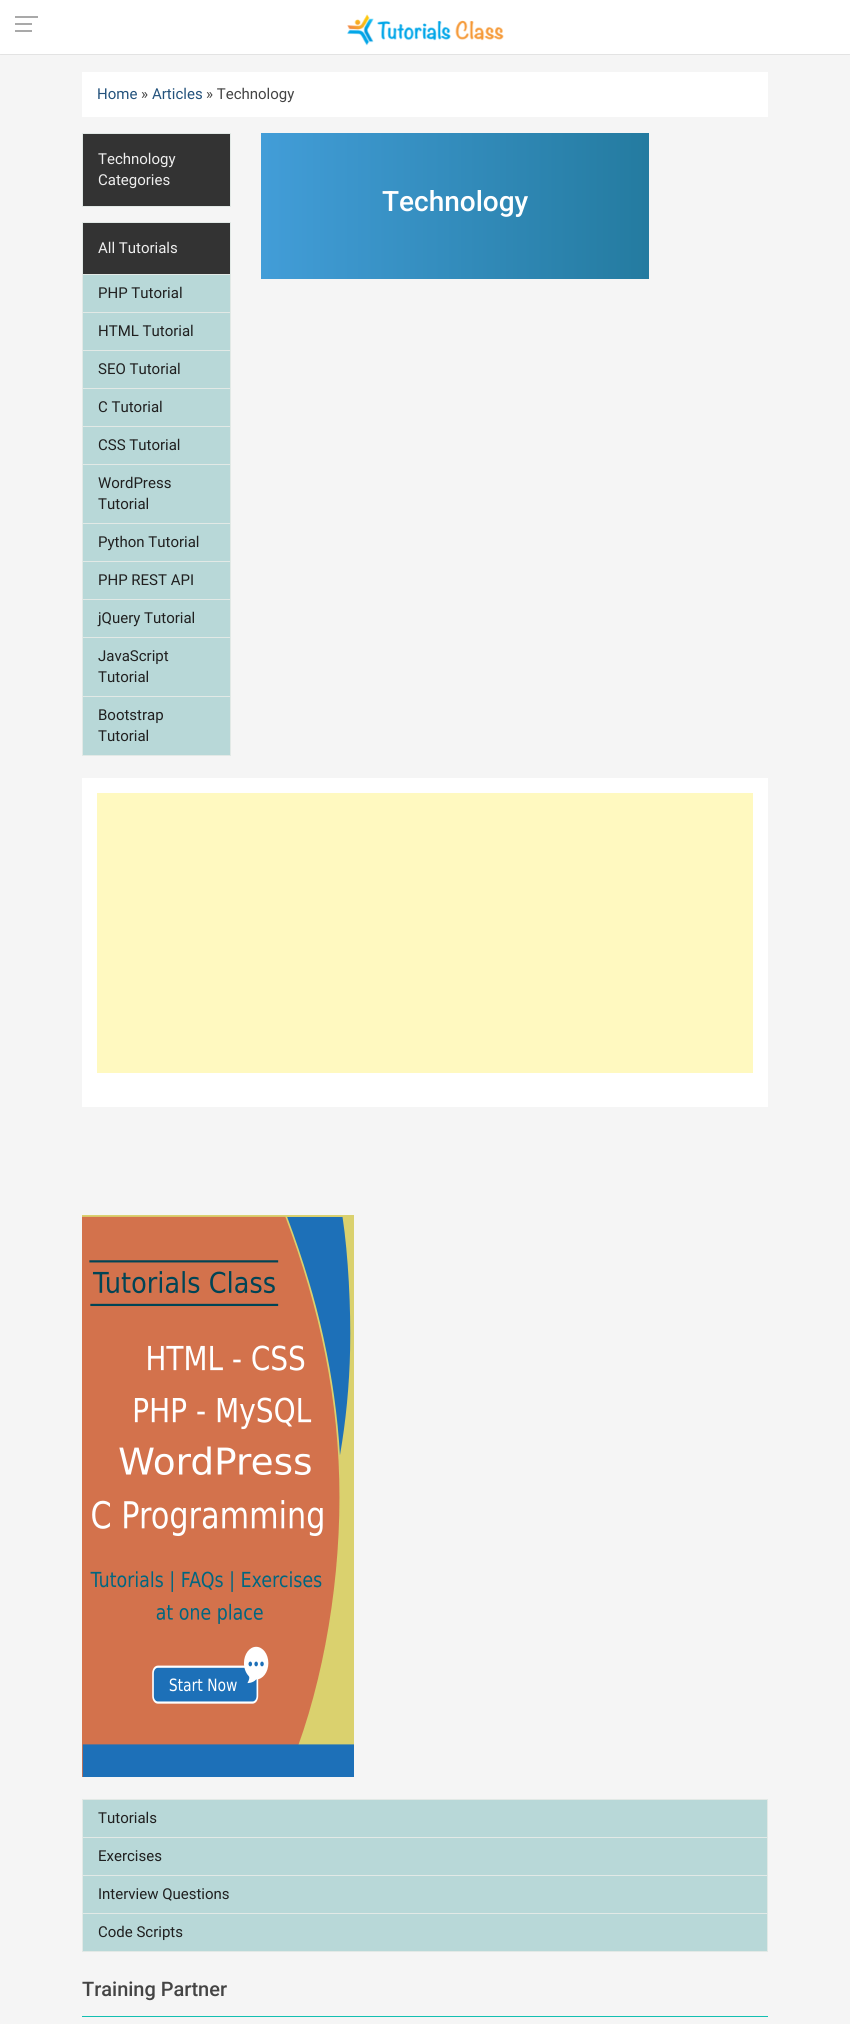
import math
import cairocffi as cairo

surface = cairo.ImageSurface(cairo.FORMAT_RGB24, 850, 2024)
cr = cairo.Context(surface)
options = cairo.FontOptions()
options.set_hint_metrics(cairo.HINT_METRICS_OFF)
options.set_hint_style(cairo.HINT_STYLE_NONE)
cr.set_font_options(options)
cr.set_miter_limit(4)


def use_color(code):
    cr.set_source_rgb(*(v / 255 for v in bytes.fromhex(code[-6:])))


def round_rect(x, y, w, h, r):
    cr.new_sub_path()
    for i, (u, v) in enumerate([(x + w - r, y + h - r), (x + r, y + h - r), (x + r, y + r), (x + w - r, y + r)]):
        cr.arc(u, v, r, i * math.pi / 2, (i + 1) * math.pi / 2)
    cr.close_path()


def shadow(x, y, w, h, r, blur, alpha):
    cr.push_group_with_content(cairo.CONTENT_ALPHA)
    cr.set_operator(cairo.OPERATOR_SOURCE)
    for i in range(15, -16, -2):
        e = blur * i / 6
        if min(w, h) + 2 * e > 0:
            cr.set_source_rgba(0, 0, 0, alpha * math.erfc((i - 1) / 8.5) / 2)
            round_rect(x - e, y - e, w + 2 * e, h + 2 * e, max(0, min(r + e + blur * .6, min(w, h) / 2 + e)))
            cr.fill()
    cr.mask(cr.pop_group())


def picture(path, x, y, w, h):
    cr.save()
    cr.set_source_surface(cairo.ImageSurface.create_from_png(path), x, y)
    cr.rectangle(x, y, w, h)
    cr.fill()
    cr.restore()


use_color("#f5f5f5")
cr.paint()
use_color("#000000")
shadow(0, 0, 850, 54, 0, 0.5, 0.3)
use_color("#ffffff")
cr.rectangle(0, 0, 850, 54)
cr.fill()
use_color("#a9a9a9")
cr.rectangle(15, 23, 17, 2)
cr.fill()
cr.rectangle(15, 16, 23, 2)
cr.fill()
cr.rectangle(15, 30, 17, 2)
cr.fill()
picture("img1.png", 347, 14, 157, 32)
use_color("#ffffff")
cr.rectangle(82, 72, 686, 45)
cr.fill()
cr.select_font_face("Roboto")
cr.set_font_size(15)
use_color("#23527c")
cr.move_to(97, 99)
cr.show_text("Home")
use_color("#444444")
cr.move_to(141, 99)
cr.show_text("»")
use_color("#23527c")
cr.move_to(152, 99)
cr.show_text("Articles")
use_color("#444444")
cr.move_to(206, 99)
cr.show_text("» Technology")
use_color("#333333")
cr.rectangle(82.5, 133.5, 148, 73)
cr.fill_preserve()
use_color("#e2e9e6")
cr.set_line_width(1)
cr.stroke()
use_color("#eeeeee")
cr.move_to(98, 164)
cr.show_text("Technology")
cr.move_to(98, 185)
cr.show_text("Categories")
use_color("#333333")
cr.rectangle(82.5, 222.5, 148, 52)
cr.fill_preserve()
use_color("#e2e9e6")
cr.stroke()
use_color("#eeeeee")
cr.move_to(98, 253)
cr.show_text("All Tutorials")
use_color("#b8d8d8")
cr.rectangle(82.5, 274.5, 148, 38)
cr.fill_preserve()
use_color("#e2e9e6")
cr.stroke()
use_color("#202020")
cr.move_to(98, 298)
cr.show_text("PHP Tutorial")
use_color("#b8d8d8")
cr.rectangle(82.5, 312.5, 148, 38)
cr.fill_preserve()
use_color("#e2e9e6")
cr.stroke()
use_color("#202020")
cr.move_to(98, 336)
cr.show_text("HTML Tutorial")
use_color("#b8d8d8")
cr.rectangle(82.5, 350.5, 148, 38)
cr.fill_preserve()
use_color("#e2e9e6")
cr.stroke()
use_color("#202020")
cr.move_to(98, 374)
cr.show_text("SEO Tutorial")
use_color("#b8d8d8")
cr.rectangle(82.5, 388.5, 148, 38)
cr.fill_preserve()
use_color("#e2e9e6")
cr.stroke()
use_color("#202020")
cr.move_to(98, 412)
cr.show_text("C Tutorial")
use_color("#b8d8d8")
cr.rectangle(82.5, 426.5, 148, 38)
cr.fill_preserve()
use_color("#e2e9e6")
cr.stroke()
use_color("#202020")
cr.move_to(98, 450)
cr.show_text("CSS Tutorial")
use_color("#b8d8d8")
cr.rectangle(82.5, 464.5, 148, 59)
cr.fill_preserve()
use_color("#e2e9e6")
cr.stroke()
use_color("#202020")
cr.move_to(98, 488)
cr.show_text("WordPress")
cr.move_to(98, 509)
cr.show_text("Tutorial")
use_color("#b8d8d8")
cr.rectangle(82.5, 523.5, 148, 38)
cr.fill_preserve()
use_color("#e2e9e6")
cr.stroke()
use_color("#202020")
cr.move_to(98, 547)
cr.show_text("Python Tutorial")
use_color("#b8d8d8")
cr.rectangle(82.5, 561.5, 148, 38)
cr.fill_preserve()
use_color("#e2e9e6")
cr.stroke()
use_color("#202020")
cr.move_to(98, 585)
cr.show_text("PHP REST API")
use_color("#b8d8d8")
cr.rectangle(82.5, 599.5, 148, 38)
cr.fill_preserve()
use_color("#e2e9e6")
cr.stroke()
use_color("#202020")
cr.move_to(98, 623)
cr.show_text("jQuery Tutorial")
use_color("#b8d8d8")
cr.rectangle(82.5, 637.5, 148, 59)
cr.fill_preserve()
use_color("#e2e9e6")
cr.stroke()
use_color("#202020")
cr.move_to(98, 661)
cr.show_text("JavaScript")
cr.move_to(98, 682)
cr.show_text("Tutorial")
use_color("#b8d8d8")
cr.rectangle(82.5, 696.5, 148, 59)
cr.fill_preserve()
use_color("#e2e9e6")
cr.stroke()
use_color("#202020")
cr.move_to(98, 720)
cr.show_text("Bootstrap")
cr.move_to(98, 741)
cr.show_text("Tutorial")
gradient = cairo.LinearGradient(261, 206, 649, 206)
gradient.add_color_stop_rgba(0, 0.259, 0.616, 0.847, 1)
gradient.add_color_stop_rgba(1, 0.141, 0.482, 0.627, 1)
cr.set_source(gradient)
cr.rectangle(261, 133, 388, 146)
cr.fill()
cr.select_font_face("Roboto Medium")
cr.set_font_size(28)
use_color("#ffffff")
cr.move_to(382, 211)
cr.show_text("Technology")
cr.rectangle(82, 778, 686, 329)
cr.fill()
use_color("#fff9c0")
cr.rectangle(97, 793, 656, 280)
cr.fill()
picture("img2.png", 82, 1215, 272, 562)
use_color("#b8d8d8")
cr.rectangle(82.5, 1799.5, 685, 38)
cr.fill_preserve()
use_color("#e2e9e6")
cr.stroke()
cr.select_font_face("Roboto")
cr.set_font_size(15)
use_color("#202020")
cr.move_to(98, 1823)
cr.show_text("Tutorials")
use_color("#b8d8d8")
cr.rectangle(82.5, 1837.5, 685, 38)
cr.fill_preserve()
use_color("#e2e9e6")
cr.stroke()
use_color("#202020")
cr.move_to(98, 1861)
cr.show_text("Exercises")
use_color("#b8d8d8")
cr.rectangle(82.5, 1875.5, 685, 38)
cr.fill_preserve()
use_color("#e2e9e6")
cr.stroke()
use_color("#202020")
cr.move_to(98, 1899)
cr.show_text("Interview Questions")
use_color("#b8d8d8")
cr.rectangle(82.5, 1913.5, 685, 38)
cr.fill_preserve()
use_color("#e2e9e6")
cr.stroke()
use_color("#202020")
cr.move_to(98, 1937)
cr.show_text("Code Scripts")
use_color("#13bfb1")
cr.rectangle(82, 2016, 686, 1)
cr.fill()
cr.select_font_face("Roboto Medium")
cr.set_font_size(20)
use_color("#444444")
cr.move_to(82, 1996)
cr.show_text("Training Partner")
surface.write_to_png("result.png")
